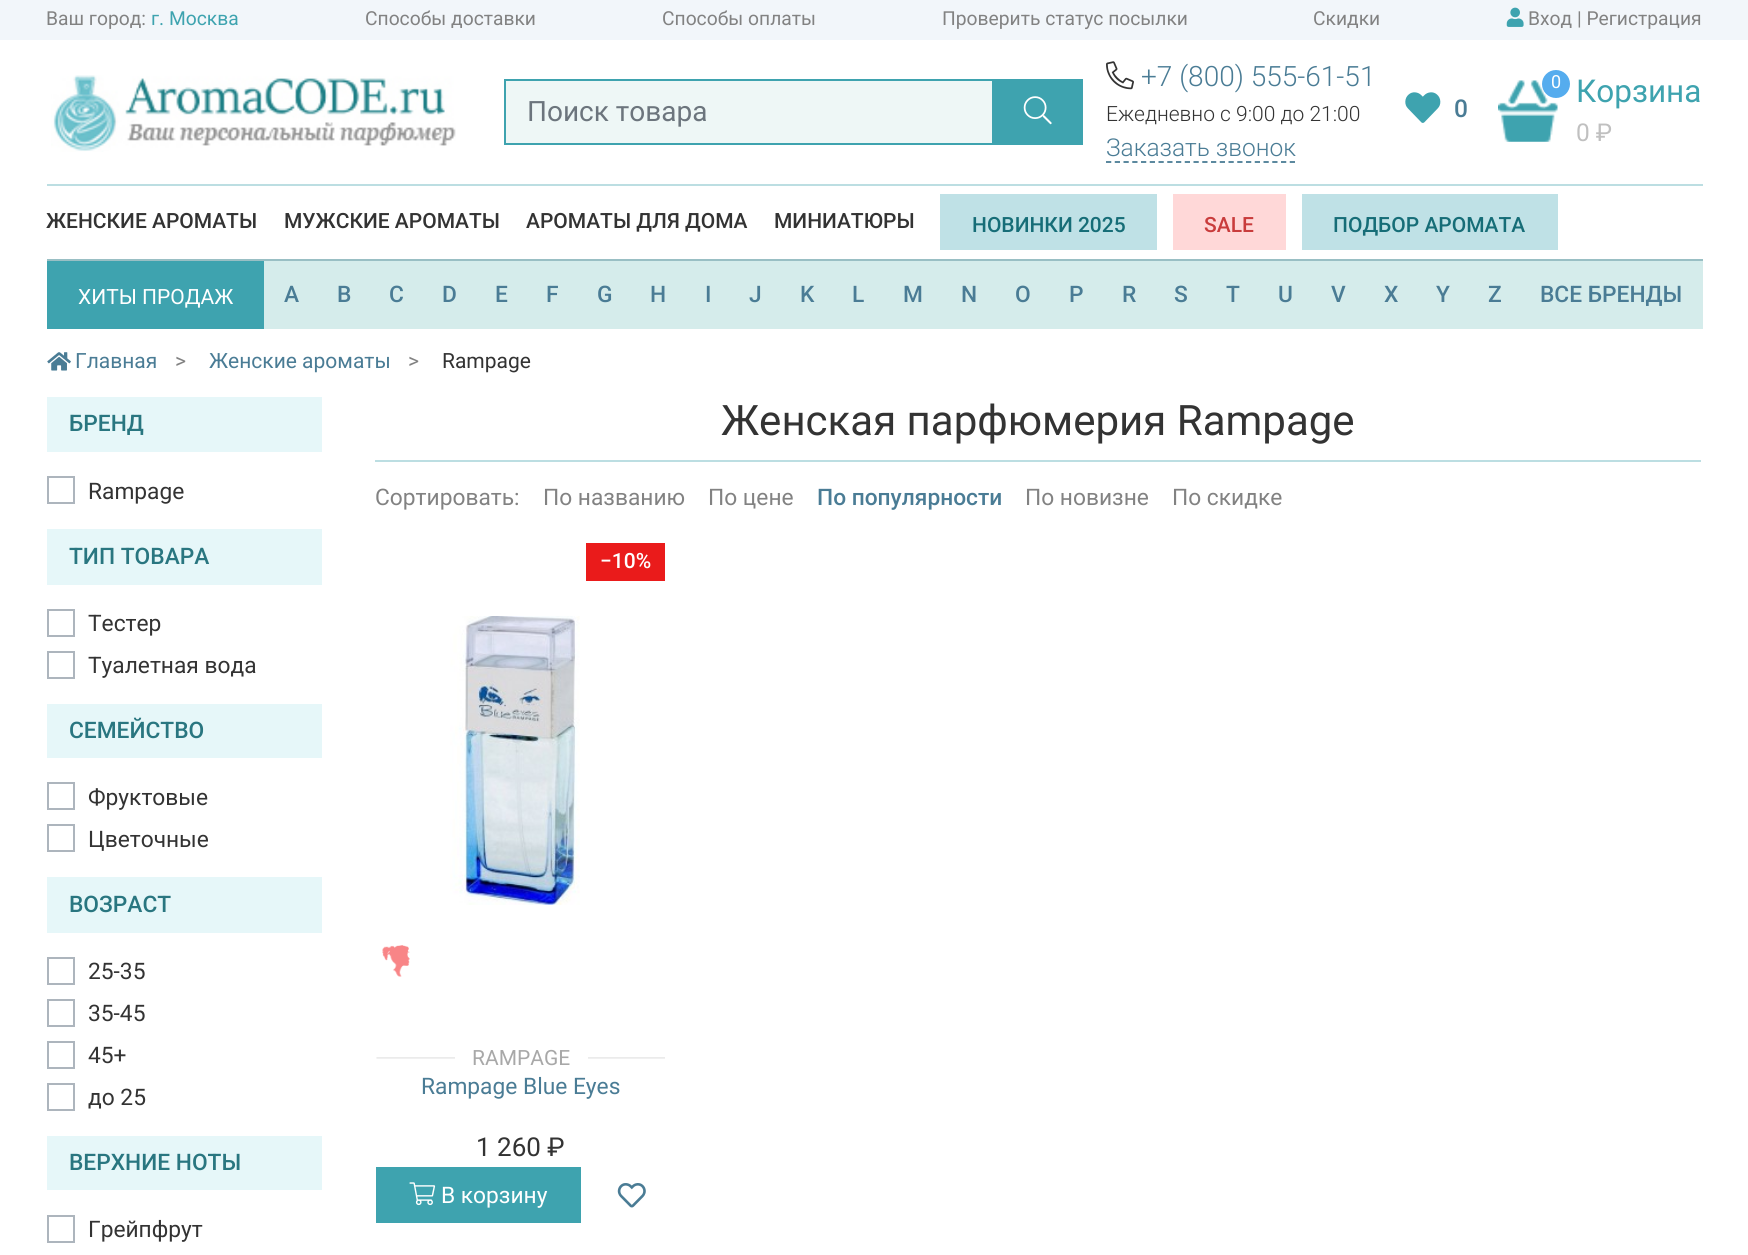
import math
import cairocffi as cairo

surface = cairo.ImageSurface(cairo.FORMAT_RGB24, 1748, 1255)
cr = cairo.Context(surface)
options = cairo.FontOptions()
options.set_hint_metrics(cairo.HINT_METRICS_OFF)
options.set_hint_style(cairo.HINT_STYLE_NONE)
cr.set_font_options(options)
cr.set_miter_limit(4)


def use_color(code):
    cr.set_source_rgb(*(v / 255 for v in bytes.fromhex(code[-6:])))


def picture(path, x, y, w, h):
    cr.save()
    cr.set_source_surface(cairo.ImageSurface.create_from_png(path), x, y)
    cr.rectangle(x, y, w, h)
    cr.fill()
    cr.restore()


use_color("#ffffff")
cr.paint()
use_color("#f2f6fa")
cr.rectangle(0, 0, 1748, 40)
cr.fill()
cr.select_font_face("Roboto")
cr.set_font_size(19.25)
use_color("#828282")
cr.move_to(46, 25)
cr.show_text("Ваш город:")
use_color("#3ea3af")
cr.move_to(151, 25)
cr.show_text("г. Москва")
use_color("#828282")
cr.move_to(365, 25)
cr.show_text("Способы доставки")
cr.move_to(662, 25)
cr.show_text("Способы оплаты")
cr.move_to(942, 25)
cr.show_text("Проверить статус посылки")
cr.move_to(1313, 25)
cr.show_text("Скидки")
picture("img1.png", 1506, 7, 18, 20)
cr.move_to(1528, 25)
cr.show_text("Вход | Регистрация")
use_color("#bcdee2")
cr.rectangle(47, 184, 1656, 2)
cr.fill()
picture("img2.png", 51, 75, 405, 77)
use_color("#eef7f6")
cr.rectangle(505, 80, 488, 64)
cr.fill_preserve()
use_color("#3ea3af")
cr.stroke()
cr.set_font_size(28)
use_color("#6c757d")
cr.move_to(527, 121)
cr.show_text("Поиск товара")
use_color("#3ea3af")
cr.rectangle(994, 79, 89, 66)
cr.fill()
picture("img3.png", 1023, 96, 29, 29)
picture("img4.png", 1106, 61, 28, 29)
cr.select_font_face("Roboto Light")
use_color("#4a7c95")
cr.move_to(1141, 86)
cr.show_text("+7 (800) 555-61-51")
cr.set_font_size(21)
use_color("#333333")
cr.move_to(1106, 121)
cr.show_text("Ежедневно с 9:00 до 21:00")
cr.set_font_size(24.5)
use_color("#4a7c95")
cr.move_to(1106, 156)
cr.show_text("Заказать звонок")
cr.new_path()
cr.move_to(1106, 162)
cr.line_to(1295, 162)
cr.set_line_width(1.8)
cr.set_dash([5.25, 3.5])
cr.stroke()
picture("img5.png", 1405, 92, 36, 31)
cr.select_font_face("Roboto Medium")
cr.move_to(1454, 117)
cr.show_text("0")
picture("img6.png", 1498, 80, 60, 62)
use_color("#55acee")
cr.arc(1556, 84, 14, 0, 2 * math.pi)
cr.fill()
cr.select_font_face("Roboto")
cr.set_font_size(18)
use_color("#ffffff")
cr.move_to(1551, 88)
cr.show_text("0")
cr.set_font_size(31.5)
use_color("#3ea3af")
cr.move_to(1576, 102)
cr.show_text("Корзина")
cr.set_font_size(24.5)
use_color("#c0c0c0")
cr.move_to(1576, 141)
cr.show_text("0 ₽")
cr.select_font_face("Roboto Medium")
cr.set_font_size(21)
use_color("#333333")
cr.move_to(46, 228)
cr.show_text("ЖЕНСКИЕ АРОМАТЫ")
cr.move_to(284, 228)
cr.show_text("МУЖСКИЕ АРОМАТЫ")
cr.move_to(526, 228)
cr.show_text("АРОМАТЫ ДЛЯ ДОМА")
cr.move_to(774, 228)
cr.show_text("МИНИАТЮРЫ")
use_color("#bfe1e6")
cr.rectangle(940, 194, 217, 56)
cr.fill()
use_color("#166d77")
cr.move_to(972, 232)
cr.show_text("НОВИНКИ 2025")
use_color("#ffd8d8")
cr.rectangle(1173, 194, 113, 56)
cr.fill()
use_color("#c93c3c")
cr.move_to(1204, 232)
cr.show_text("SALE")
use_color("#bfe1e6")
cr.rectangle(1302, 194, 256, 56)
cr.fill()
use_color("#166d77")
cr.move_to(1333, 232)
cr.show_text("ПОДБОР АРОМАТА")
use_color("#d5eceb")
cr.rectangle(264, 261, 1439, 68)
cr.fill()
use_color("#99bfc4")
cr.rectangle(47, 259, 1656, 2)
cr.fill()
use_color("#3ea3af")
cr.rectangle(47, 261, 217, 68)
cr.fill()
cr.select_font_face("Roboto")
use_color("#ffffff")
cr.move_to(78, 304)
cr.show_text("ХИТЫ ПРОДАЖ")
cr.select_font_face("Roboto Medium")
cr.set_font_size(22.75)
use_color("#4a7c95")
cr.move_to(284, 302)
cr.show_text("A")
cr.move_to(337, 302)
cr.show_text("B")
cr.move_to(389, 302)
cr.show_text("C")
cr.move_to(442, 302)
cr.show_text("D")
cr.move_to(495, 302)
cr.show_text("E")
cr.move_to(546, 302)
cr.show_text("F")
cr.move_to(597, 302)
cr.show_text("G")
cr.move_to(650, 302)
cr.show_text("H")
cr.move_to(705, 302)
cr.show_text("I")
cr.move_to(749, 302)
cr.show_text("J")
cr.move_to(800, 302)
cr.show_text("K")
cr.move_to(852, 302)
cr.show_text("L")
cr.move_to(903, 302)
cr.show_text("M")
cr.move_to(961, 302)
cr.show_text("N")
cr.move_to(1015, 302)
cr.show_text("O")
cr.move_to(1069, 302)
cr.show_text("P")
cr.move_to(1122, 302)
cr.show_text("R")
cr.move_to(1174, 302)
cr.show_text("S")
cr.move_to(1226, 302)
cr.show_text("T")
cr.move_to(1278, 302)
cr.show_text("U")
cr.move_to(1331, 302)
cr.show_text("V")
cr.move_to(1384, 302)
cr.show_text("X")
cr.move_to(1436, 302)
cr.show_text("Y")
cr.move_to(1488, 302)
cr.show_text("Z")
cr.move_to(1540, 302)
cr.show_text("ВСЕ БРЕНДЫ")
picture("img7.png", 47, 352, 24, 19)
cr.select_font_face("Roboto")
cr.set_font_size(21)
cr.move_to(75, 368)
cr.show_text("Главная")
use_color("#828282")
cr.move_to(175, 368)
cr.show_text(">")
use_color("#4a7c95")
cr.move_to(209, 368)
cr.show_text("Женские ароматы")
use_color("#828282")
cr.move_to(408, 368)
cr.show_text(">")
use_color("#333333")
cr.move_to(442, 368)
cr.show_text("Rampage")
use_color("#e6f7f9")
cr.rectangle(47, 397, 275, 55)
cr.fill()
cr.select_font_face("Roboto Medium")
cr.set_font_size(22.75)
use_color("#297680")
cr.move_to(69, 431)
cr.show_text("БРЕНД")
cr.rectangle(48, 477, 26, 26)
use_color("#adb5bd")
cr.set_line_width(2)
cr.set_dash([])
cr.stroke()
cr.select_font_face("Roboto")
use_color("#333333")
cr.move_to(88, 499)
cr.show_text("Rampage")
use_color("#e6f7f9")
cr.rectangle(47, 529, 275, 56)
cr.fill()
cr.select_font_face("Roboto Medium")
use_color("#297680")
cr.move_to(69, 564)
cr.show_text("ТИП ТОВАРА")
cr.rectangle(48, 610, 26, 26)
use_color("#adb5bd")
cr.stroke()
cr.select_font_face("Roboto")
use_color("#333333")
cr.move_to(88, 631)
cr.show_text("Тестер")
cr.rectangle(48, 652, 26, 26)
use_color("#adb5bd")
cr.stroke()
use_color("#333333")
cr.move_to(88, 673)
cr.show_text("Туалетная вода")
use_color("#e6f7f9")
cr.rectangle(47, 704, 275, 54)
cr.fill()
cr.select_font_face("Roboto Medium")
use_color("#297680")
cr.move_to(69, 738)
cr.show_text("СЕМЕЙСТВО")
cr.rectangle(48, 783, 26, 26)
use_color("#adb5bd")
cr.stroke()
cr.select_font_face("Roboto")
use_color("#333333")
cr.move_to(88, 805)
cr.show_text("Фруктовые")
cr.rectangle(48, 825, 26, 26)
use_color("#adb5bd")
cr.stroke()
use_color("#333333")
cr.move_to(88, 847)
cr.show_text("Цветочные")
use_color("#e6f7f9")
cr.rectangle(47, 877, 275, 56)
cr.fill()
cr.select_font_face("Roboto Medium")
use_color("#297680")
cr.move_to(69, 912)
cr.show_text("ВОЗРАСТ")
cr.rectangle(48, 958, 26, 26)
use_color("#adb5bd")
cr.stroke()
cr.select_font_face("Roboto")
use_color("#333333")
cr.move_to(88, 979)
cr.show_text("25-35")
cr.rectangle(48, 1000, 26, 26)
use_color("#adb5bd")
cr.stroke()
use_color("#333333")
cr.move_to(88, 1021)
cr.show_text("35-45")
cr.rectangle(48, 1042, 26, 26)
use_color("#adb5bd")
cr.stroke()
use_color("#333333")
cr.move_to(88, 1063)
cr.show_text("45+")
cr.rectangle(48, 1084, 26, 26)
use_color("#adb5bd")
cr.stroke()
use_color("#333333")
cr.move_to(88, 1105)
cr.show_text("до 25")
use_color("#e6f7f9")
cr.rectangle(47, 1136, 275, 54)
cr.fill()
cr.select_font_face("Roboto Medium")
use_color("#297680")
cr.move_to(69, 1170)
cr.show_text("ВЕРХНИЕ НОТЫ")
cr.rectangle(48, 1216, 26, 26)
use_color("#adb5bd")
cr.stroke()
cr.select_font_face("Roboto")
use_color("#333333")
cr.move_to(88, 1237)
cr.show_text("Грейпфрут")
cr.set_font_size(42)
cr.move_to(721, 435)
cr.show_text("Женская парфюмерия Rampage")
use_color("#bcdee2")
cr.rectangle(375, 460, 1326, 2)
cr.fill()
cr.set_font_size(22.75)
use_color("#828282")
cr.move_to(375, 505)
cr.show_text("Сортировать:")
cr.move_to(543, 505)
cr.show_text("По названию")
cr.move_to(708, 505)
cr.show_text("По цене")
cr.select_font_face("Roboto Medium")
use_color("#4a7c95")
cr.move_to(817, 505)
cr.show_text("По популярности")
cr.select_font_face("Roboto")
use_color("#828282")
cr.move_to(1025, 505)
cr.show_text("По новизне")
cr.move_to(1172, 505)
cr.show_text("По скидке")
use_color("#ea1b1b")
cr.rectangle(586, 543, 79, 38)
cr.fill()
cr.select_font_face("Roboto Medium")
cr.set_font_size(21)
use_color("#ffffff")
cr.move_to(600, 568)
cr.show_text("−10%")
picture("img8.png", 450, 616, 130, 289)
picture("img9.png", 382, 945, 28, 32)
picture("img10.png", 376, 1057, 289, 2)
cr.rectangle(455, 1057, 133, 2)
cr.fill()
cr.select_font_face("Roboto")
use_color("#a8a8a8")
cr.move_to(472, 1065)
cr.show_text("RAMPAGE")
cr.set_font_size(22.75)
use_color("#4a7c95")
cr.move_to(421, 1094)
cr.show_text("Rampage Blue Eyes")
cr.set_font_size(26)
use_color("#333333")
cr.move_to(476, 1156)
cr.show_text("1 260 ₽")
use_color("#3ea3af")
cr.rectangle(376, 1167, 205, 56)
cr.fill()
picture("img11.png", 409, 1182, 27, 24)
cr.set_font_size(22.75)
use_color("#ffffff")
cr.move_to(441, 1203)
cr.show_text("В корзину")
picture("img12.png", 617, 1183, 29, 25)
surface.write_to_png("result.png")
